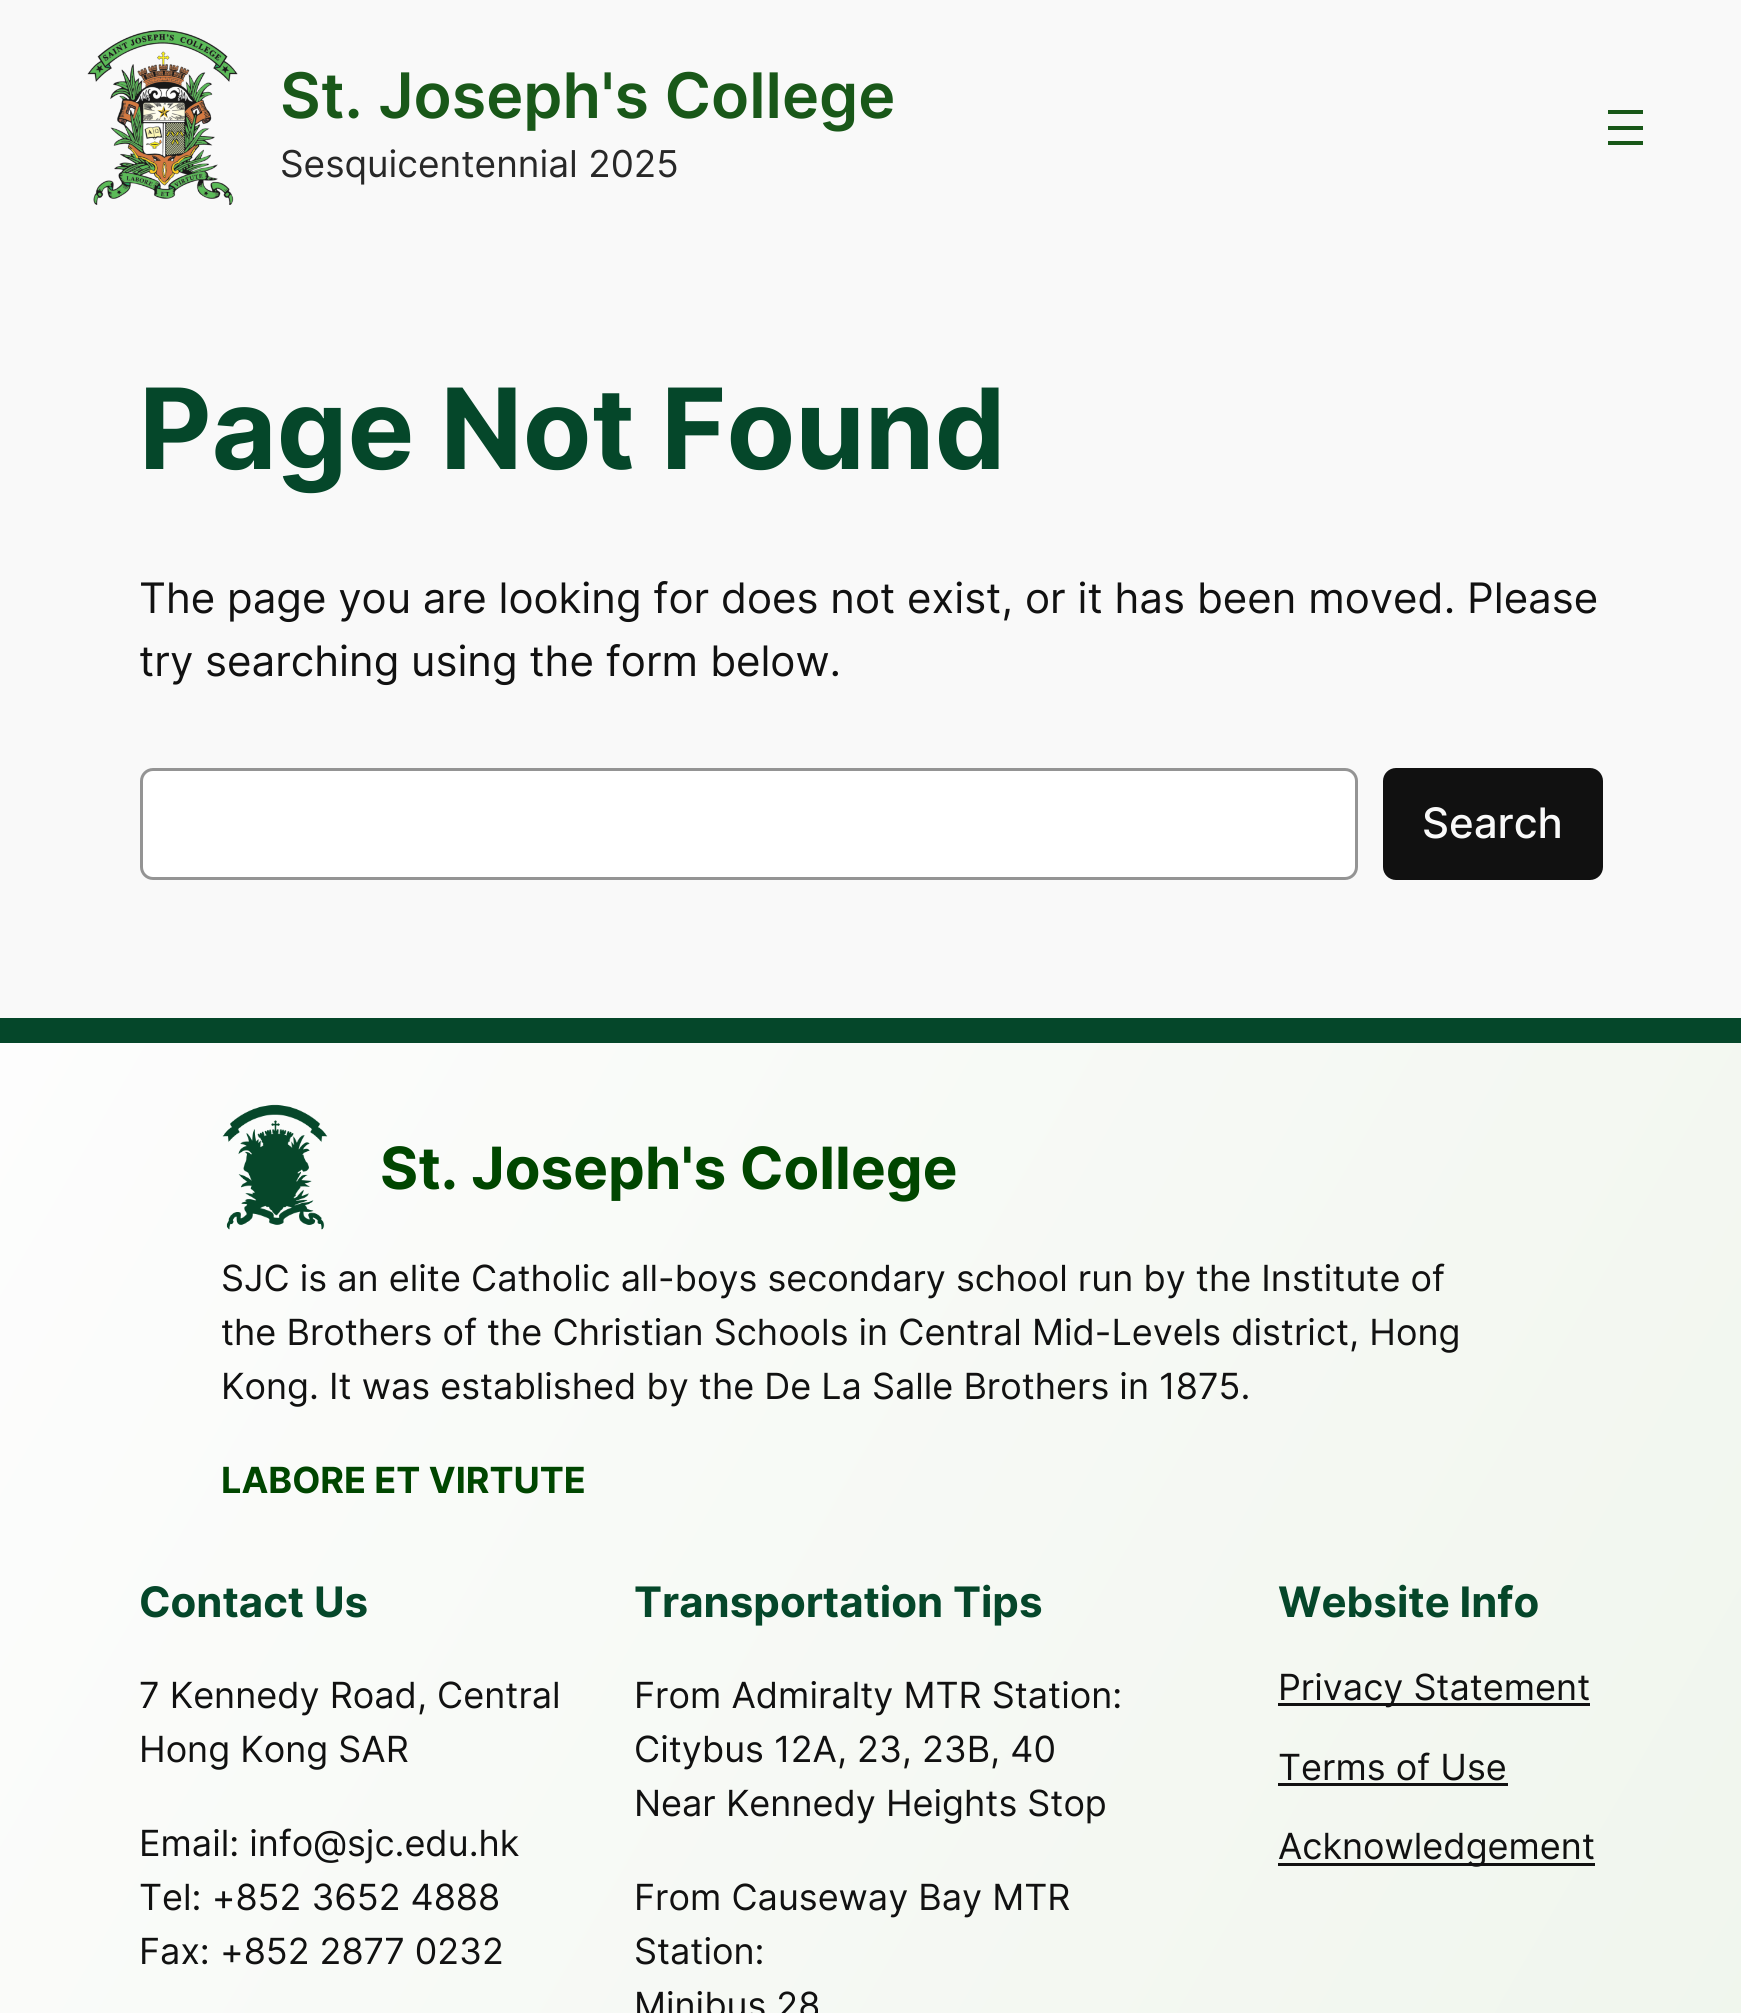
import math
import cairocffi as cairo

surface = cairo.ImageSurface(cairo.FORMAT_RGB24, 1741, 2013)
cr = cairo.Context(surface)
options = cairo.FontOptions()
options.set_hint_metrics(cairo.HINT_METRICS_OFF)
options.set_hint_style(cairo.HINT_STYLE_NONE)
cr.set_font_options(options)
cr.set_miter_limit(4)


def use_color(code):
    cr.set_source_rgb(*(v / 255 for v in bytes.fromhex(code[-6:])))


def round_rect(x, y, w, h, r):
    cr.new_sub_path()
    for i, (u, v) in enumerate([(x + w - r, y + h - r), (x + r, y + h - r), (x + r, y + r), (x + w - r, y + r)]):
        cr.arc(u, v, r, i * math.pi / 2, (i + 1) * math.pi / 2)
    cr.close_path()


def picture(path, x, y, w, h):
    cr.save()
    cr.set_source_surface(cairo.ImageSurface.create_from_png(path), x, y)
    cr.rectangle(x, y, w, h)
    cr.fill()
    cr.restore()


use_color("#f9f9f9")
cr.paint()
picture("img1.png", 87, 30, 151, 175)
cr.select_font_face("Inter SemiBold")
cr.set_font_size(62.75)
use_color("#195819")
cr.move_to(280, 118)
cr.show_text("St. Joseph's College")
cr.select_font_face("Inter")
cr.set_font_size(37)
use_color("#282828")
cr.move_to(280, 177)
cr.show_text("Sesquicentennial 2025")
use_color("#195819")
cr.rectangle(1608, 110, 35, 4)
cr.fill()
cr.rectangle(1608, 126, 35, 4)
cr.fill()
cr.rectangle(1608, 141, 35, 4)
cr.fill()
cr.select_font_face("Inter", cairo.FONT_SLANT_NORMAL, cairo.FONT_WEIGHT_BOLD)
cr.set_font_size(112)
use_color("#05472a")
cr.move_to(139, 469)
cr.show_text("Page Not Found")
cr.select_font_face("Inter")
cr.set_font_size(42)
use_color("#111111")
cr.move_to(139, 613)
cr.show_text("The page you are looking for does not exist, or it has been moved. Please")
cr.move_to(139, 676)
cr.show_text("try searching using the form below.")
use_color("#ffffff")
round_rect(141.5, 769.5, 1215, 109, 11.5)
cr.fill_preserve()
use_color("#949494")
cr.set_line_width(3)
cr.stroke()
use_color("#111111")
round_rect(1383, 768, 220, 112, 13)
cr.fill()
cr.select_font_face("Inter Medium")
use_color("#f9f9f9")
cr.move_to(1422, 838)
cr.show_text("Search")
use_color("#05472a")
cr.rectangle(0, 1018, 1741, 25)
cr.fill()
gradient = cairo.LinearGradient(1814, 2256, -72, 1167)
gradient.add_color_stop_rgba(0, 0.937, 0.961, 0.925, 1)
gradient.add_color_stop_rgba(1, 0.992, 0.992, 0.992, 1)
cr.set_source(gradient)
cr.rectangle(0, 1043, 1741, 970)
cr.fill()
picture("img2.png", 222, 1104, 106, 126)
cr.select_font_face("Inter", cairo.FONT_SLANT_NORMAL, cairo.FONT_WEIGHT_BOLD)
cr.set_font_size(58.25)
use_color("#004600")
cr.move_to(380, 1189)
cr.show_text("St. Joseph's College")
cr.select_font_face("Inter")
cr.set_font_size(36)
use_color("#111111")
cr.move_to(221, 1291)
cr.show_text("SJC is an elite Catholic all-boys secondary school run by the Institute of")
cr.move_to(221, 1345)
cr.show_text("the Brothers of the Christian Schools in Central Mid-Levels district, Hong")
cr.move_to(221, 1399)
cr.show_text("Kong. It was established by the De La Salle Brothers in 1875.")
cr.select_font_face("Inter", cairo.FONT_SLANT_NORMAL, cairo.FONT_WEIGHT_BOLD)
use_color("#004600")
cr.move_to(221, 1493)
cr.show_text("LABORE ET VIRTUTE")
cr.set_font_size(42)
use_color("#05472a")
cr.move_to(139, 1617)
cr.show_text("Contact Us")
cr.select_font_face("Inter")
cr.set_font_size(36)
use_color("#111111")
cr.move_to(139, 1708)
cr.show_text("7 Kennedy Road, Central")
cr.move_to(139, 1762)
cr.show_text("Hong Kong SAR")
cr.move_to(139, 1856)
cr.show_text("Email: info@sjc.edu.hk")
cr.move_to(139, 1910)
cr.show_text("Tel: +852 3652 4888")
cr.move_to(139, 1964)
cr.show_text("Fax: +852 2877 0232")
cr.select_font_face("Inter", cairo.FONT_SLANT_NORMAL, cairo.FONT_WEIGHT_BOLD)
cr.set_font_size(42)
use_color("#05472a")
cr.move_to(634, 1617)
cr.show_text("Transportation Tips")
cr.select_font_face("Inter")
cr.set_font_size(36)
use_color("#111111")
cr.move_to(634, 1708)
cr.show_text("From Admiralty MTR Station:")
cr.move_to(634, 1762)
cr.show_text("Citybus 12A, 23, 23B, 40")
cr.move_to(634, 1816)
cr.show_text("Near Kennedy Heights Stop")
cr.move_to(634, 1910)
cr.show_text("From Causeway Bay MTR")
cr.move_to(634, 1964)
cr.show_text("Station:")
cr.move_to(634, 2018)
cr.show_text("Minibus 28")
cr.select_font_face("Inter", cairo.FONT_SLANT_NORMAL, cairo.FONT_WEIGHT_BOLD)
cr.set_font_size(42)
use_color("#05472a")
cr.move_to(1278, 1617)
cr.show_text("Website Info")
use_color("#111111")
cr.rectangle(1278, 1703, 312, 3)
cr.fill()
cr.select_font_face("Inter")
cr.set_font_size(36)
cr.move_to(1278, 1700)
cr.show_text("Privacy Statement")
cr.move_to(1278, 1780)
cr.show_text("Terms of Use")
cr.rectangle(1278, 1783, 230, 3)
cr.fill()
cr.rectangle(1278, 1863, 317, 3)
cr.fill()
cr.move_to(1278, 1859)
cr.show_text("Acknowledgement")
surface.write_to_png("result.png")
